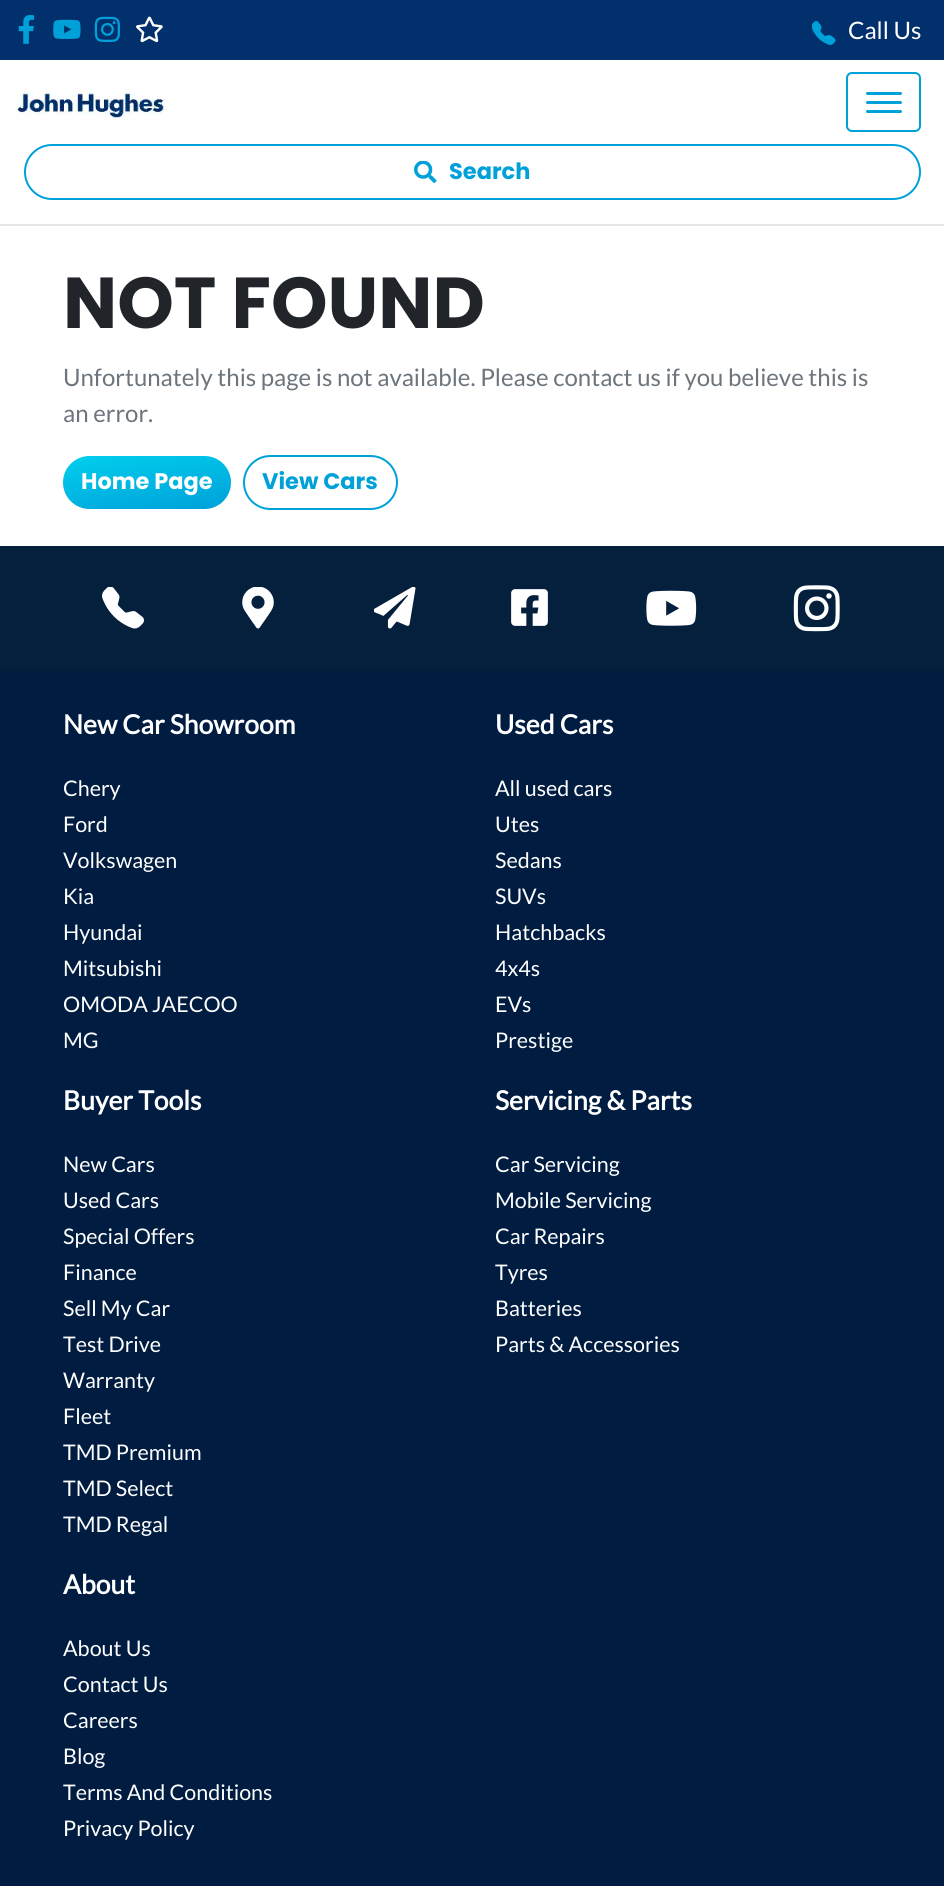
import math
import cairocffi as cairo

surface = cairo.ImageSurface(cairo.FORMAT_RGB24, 944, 1886)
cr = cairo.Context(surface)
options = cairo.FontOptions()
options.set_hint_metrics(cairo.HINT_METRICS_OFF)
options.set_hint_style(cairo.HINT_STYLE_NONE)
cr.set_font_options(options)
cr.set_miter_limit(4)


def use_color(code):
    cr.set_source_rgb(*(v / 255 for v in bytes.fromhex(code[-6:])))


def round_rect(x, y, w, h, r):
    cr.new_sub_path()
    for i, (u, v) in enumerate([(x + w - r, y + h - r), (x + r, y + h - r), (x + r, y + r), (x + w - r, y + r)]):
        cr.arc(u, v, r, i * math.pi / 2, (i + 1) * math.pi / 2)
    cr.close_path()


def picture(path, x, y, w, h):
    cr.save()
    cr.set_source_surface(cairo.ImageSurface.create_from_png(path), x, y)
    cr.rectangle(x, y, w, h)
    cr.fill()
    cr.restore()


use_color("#ffffff")
cr.paint()
use_color("#01306c")
cr.rectangle(0, 0, 944, 60)
cr.fill()
picture("img1.png", 18, 15, 17, 29)
picture("img2.png", 53, 19, 28, 20)
picture("img3.png", 94, 16, 26, 26)
picture("img4.png", 136, 16, 27, 27)
picture("img5.png", 812, 21, 24, 24)
cr.select_font_face("Lato")
cr.set_font_size(24)
use_color("#ffffff")
cr.move_to(848, 39)
cr.show_text("Call Us")
use_color("#e6e6e6")
cr.rectangle(0, 224, 944, 2)
cr.fill()
picture("img6.png", 16, 88, 150, 33)
round_rect(847, 73, 73, 58, 5)
use_color("#00a1d9")
cr.stroke()
round_rect(866, 92, 36, 3, 1.5)
cr.fill()
round_rect(866, 101, 36, 3, 1.5)
cr.fill()
round_rect(866, 110, 36, 3, 1.5)
cr.fill()
round_rect(25, 145, 895, 54, 27)
cr.stroke()
picture("img7.png", 414, 161, 23, 22)
cr.select_font_face("Poppins", cairo.FONT_SLANT_NORMAL, cairo.FONT_WEIGHT_BOLD)
cr.set_font_size(22.5)
cr.move_to(449, 179)
cr.show_text("Search")
cr.set_font_size(72)
use_color("#212529")
cr.move_to(63, 328)
cr.show_text("NOT FOUND")
cr.select_font_face("Lato")
cr.set_font_size(24)
use_color("#6c757d")
cr.move_to(63, 386)
cr.show_text("Unfortunately this page is not available. Please contact us if you believe this is")
cr.move_to(63, 422)
cr.show_text("an error.")
gradient = cairo.LinearGradient(140, 442, 154, 522)
gradient.add_color_stop_rgba(0, 0, 0.812, 0.933, 1)
gradient.add_color_stop_rgba(1, 0, 0.631, 0.851, 1)
cr.set_source(gradient)
round_rect(63, 456, 168, 53, 26.5)
cr.fill()
cr.select_font_face("Poppins", cairo.FONT_SLANT_NORMAL, cairo.FONT_WEIGHT_BOLD)
cr.set_font_size(22.5)
use_color("#ffffff")
cr.move_to(81, 489)
cr.show_text("Home Page")
round_rect(244, 456, 153, 53, 26.5)
use_color("#00a1d9")
cr.stroke()
cr.move_to(262, 489)
cr.show_text("View Cars")
use_color("#04203d")
cr.rectangle(0, 546, 944, 125)
cr.fill()
picture("img8.png", 102, 587, 42, 42)
picture("img9.png", 242, 587, 32, 42)
picture("img10.png", 374, 587, 42, 42)
picture("img11.png", 511, 589, 37, 37)
picture("img12.png", 646, 590, 51, 36)
picture("img13.png", 793, 585, 47, 47)
use_color("#001c40")
cr.rectangle(0, 671, 944, 1215)
cr.fill()
cr.select_font_face("Lato", cairo.FONT_SLANT_NORMAL, cairo.FONT_WEIGHT_BOLD)
cr.set_font_size(26.5)
use_color("#ffffff")
cr.move_to(63, 734)
cr.show_text("New Car Showroom")
cr.select_font_face("Lato")
cr.set_font_size(21.5)
cr.move_to(63, 796)
cr.show_text("Chery")
cr.move_to(63, 832)
cr.show_text("Ford")
cr.move_to(63, 868)
cr.show_text("Volkswagen")
cr.move_to(63, 904)
cr.show_text("Kia")
cr.move_to(63, 940)
cr.show_text("Hyundai")
cr.move_to(63, 976)
cr.show_text("Mitsubishi")
cr.move_to(63, 1012)
cr.show_text("OMODA JAECOO")
cr.move_to(63, 1048)
cr.show_text("MG")
cr.select_font_face("Lato", cairo.FONT_SLANT_NORMAL, cairo.FONT_WEIGHT_BOLD)
cr.set_font_size(26.5)
cr.move_to(495, 734)
cr.show_text("Used Cars")
cr.select_font_face("Lato")
cr.set_font_size(21.5)
cr.move_to(495, 796)
cr.show_text("All used cars")
cr.move_to(495, 832)
cr.show_text("Utes")
cr.move_to(495, 868)
cr.show_text("Sedans")
cr.move_to(495, 904)
cr.show_text("SUVs")
cr.move_to(495, 940)
cr.show_text("Hatchbacks")
cr.move_to(495, 976)
cr.show_text("4x4s")
cr.move_to(495, 1012)
cr.show_text("EVs")
cr.move_to(495, 1048)
cr.show_text("Prestige")
cr.select_font_face("Lato", cairo.FONT_SLANT_NORMAL, cairo.FONT_WEIGHT_BOLD)
cr.set_font_size(26.5)
cr.move_to(63, 1110)
cr.show_text("Buyer Tools")
cr.select_font_face("Lato")
cr.set_font_size(21.5)
cr.move_to(63, 1172)
cr.show_text("New Cars")
cr.move_to(63, 1208)
cr.show_text("Used Cars")
cr.move_to(63, 1244)
cr.show_text("Special Offers")
cr.move_to(63, 1280)
cr.show_text("Finance")
cr.move_to(63, 1316)
cr.show_text("Sell My Car")
cr.move_to(63, 1352)
cr.show_text("Test Drive")
cr.move_to(63, 1388)
cr.show_text("Warranty")
cr.move_to(63, 1424)
cr.show_text("Fleet")
cr.move_to(63, 1460)
cr.show_text("TMD Premium")
cr.move_to(63, 1496)
cr.show_text("TMD Select")
cr.move_to(63, 1532)
cr.show_text("TMD Regal")
cr.select_font_face("Lato", cairo.FONT_SLANT_NORMAL, cairo.FONT_WEIGHT_BOLD)
cr.set_font_size(26.5)
cr.move_to(495, 1110)
cr.show_text("Servicing & Parts")
cr.select_font_face("Lato")
cr.set_font_size(21.5)
cr.move_to(495, 1172)
cr.show_text("Car Servicing")
cr.move_to(495, 1208)
cr.show_text("Mobile Servicing")
cr.move_to(495, 1244)
cr.show_text("Car Repairs")
cr.move_to(495, 1280)
cr.show_text("Tyres")
cr.move_to(495, 1316)
cr.show_text("Batteries")
cr.move_to(495, 1352)
cr.show_text("Parts & Accessories")
cr.select_font_face("Lato", cairo.FONT_SLANT_NORMAL, cairo.FONT_WEIGHT_BOLD)
cr.set_font_size(26.5)
cr.move_to(63, 1594)
cr.show_text("About")
cr.select_font_face("Lato")
cr.set_font_size(21.5)
cr.move_to(63, 1656)
cr.show_text("About Us")
cr.move_to(63, 1692)
cr.show_text("Contact Us")
cr.move_to(63, 1728)
cr.show_text("Careers")
cr.move_to(63, 1764)
cr.show_text("Blog")
cr.move_to(63, 1800)
cr.show_text("Terms And Conditions")
cr.move_to(63, 1836)
cr.show_text("Privacy Policy")
surface.write_to_png("result.png")
